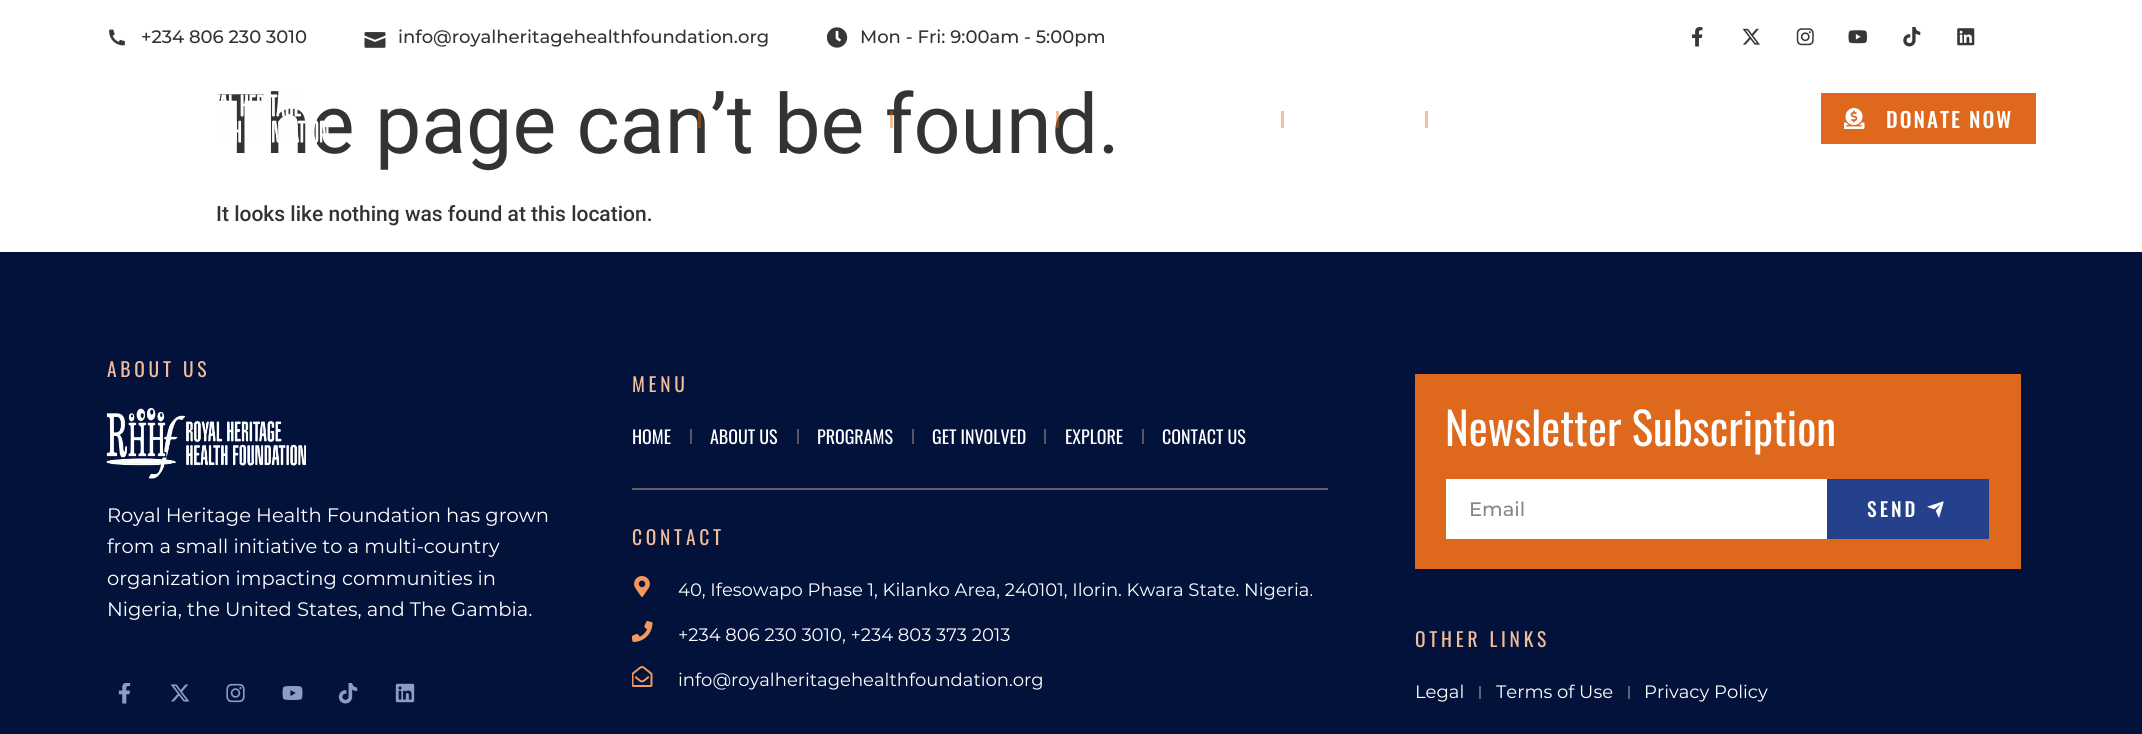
import math
import cairocffi as cairo

surface = cairo.ImageSurface(cairo.FORMAT_RGB24, 2142, 734)
cr = cairo.Context(surface)
options = cairo.FontOptions()
options.set_hint_metrics(cairo.HINT_METRICS_OFF)
options.set_hint_style(cairo.HINT_STYLE_NONE)
cr.set_font_options(options)
cr.set_miter_limit(4)


def use_color(code):
    cr.set_source_rgb(*(v / 255 for v in bytes.fromhex(code[-6:])))


def spaced_text(x, y, s, letter, word):
    cr.move_to(x, y)
    for ch in s:
        cr.show_text(ch)
        cr.rel_move_to(letter + word * (ch == ' '), 0)


def picture(path, x, y, w, h):
    cr.save()
    cr.set_source_surface(cairo.ImageSurface.create_from_png(path), x, y)
    cr.rectangle(x, y, w, h)
    cr.fill()
    cr.restore()


use_color("#ffffff")
cr.paint()
picture("img1.png", 109, 29, 16, 17)
cr.select_font_face("Montserrat Medium")
cr.set_font_size(18)
use_color("#333333")
cr.move_to(141, 43)
cr.show_text("+234 806 230 3010")
picture("img2.png", 364, 32, 22, 16)
cr.move_to(398, 43)
cr.show_text("info@royalheritagehealthfoundation.org")
picture("img3.png", 827, 27, 21, 21)
cr.move_to(860, 43)
cr.show_text("Mon - Fri: 9:00am - 5:00pm")
picture("img4.png", 1692, 27, 11, 20)
picture("img5.png", 1742, 28, 18, 17)
picture("img6.png", 1796, 28, 18, 18)
picture("img7.png", 1848, 30, 19, 14)
picture("img8.png", 1903, 27, 18, 20)
picture("img9.png", 1957, 28, 18, 18)
cr.select_font_face("Roboto")
cr.set_font_size(82.5)
cr.move_to(216, 153)
cr.show_text("The page can’t be found.")
picture("img10.png", 218, 94, 111, 49)
cr.set_source_rgba(0.871, 0.412, 0.11, 0.43)
cr.rectangle(698, 111, 3, 17)
cr.fill()
use_color("#ffffff")
cr.rectangle(839, 115, 12, 3)
cr.fill()
cr.set_source_rgba(0.871, 0.412, 0.11, 0.43)
cr.rectangle(890, 111, 3, 17)
cr.fill()
cr.rectangle(1056, 111, 3, 17)
cr.fill()
use_color("#f1bf9d")
cr.rectangle(1281, 111, 3, 17)
cr.fill()
cr.rectangle(1425, 111, 3, 17)
cr.fill()
use_color("#de691c")
cr.rectangle(1821, 93, 215, 51)
cr.fill()
picture("img11.png", 1844, 108, 21, 21)
cr.select_font_face("Oswald Medium")
cr.set_font_size(21)
use_color("#ffffff")
spaced_text(1886, 128, "DONATE NOW", 2, 0)
cr.select_font_face("Roboto Medium")
use_color("#333333")
cr.move_to(216, 221)
cr.show_text("It looks like nothing was found at this location.")
use_color("#02123a")
cr.rectangle(0, 252, 2142, 482)
cr.fill()
cr.select_font_face("Oswald")
cr.set_font_size(19.5)
use_color("#f2bd9b")
spaced_text(107, 377, "ABOUT US", 3.75, 0)
picture("img12.png", 106, 408, 200, 71)
cr.select_font_face("Montserrat")
use_color("#ffffff")
cr.move_to(107, 522)
cr.show_text("Royal Heritage Health Foundation has grown")
cr.move_to(107, 553)
cr.show_text("from a small initiative to a multi-country")
cr.move_to(107, 585)
cr.show_text("organization impacting communities in")
cr.move_to(107, 616)
cr.show_text("Nigeria, the United States, and The Gambia.")
picture("img13.png", 118, 683, 13, 21)
picture("img14.png", 170, 684, 20, 18)
picture("img15.png", 226, 683, 19, 20)
picture("img16.png", 282, 686, 21, 14)
picture("img17.png", 338, 683, 20, 21)
picture("img18.png", 395, 683, 20, 20)
cr.select_font_face("Oswald")
use_color("#f2bd9b")
spaced_text(632, 392, "MENU", 3.75, 0)
cr.set_font_size(18)
use_color("#ffffff")
cr.move_to(632, 444)
cr.show_text("HOME")
use_color("#5d535f")
cr.rectangle(690, 429, 2, 15)
cr.fill()
use_color("#ffffff")
cr.move_to(710, 444)
cr.show_text("ABOUT US")
use_color("#5d535f")
cr.rectangle(797, 429, 2, 15)
cr.fill()
use_color("#ffffff")
cr.move_to(817, 444)
cr.show_text("PROGRAMS")
use_color("#5d535f")
cr.rectangle(912, 429, 2, 15)
cr.fill()
use_color("#ffffff")
cr.move_to(932, 444)
cr.show_text("GET INVOLVED")
use_color("#5d535f")
cr.rectangle(1044, 429, 2, 15)
cr.fill()
use_color("#ffffff")
cr.move_to(1065, 444)
cr.show_text("EXPLORE")
use_color("#5d535f")
cr.rectangle(1142, 429, 2, 15)
cr.fill()
use_color("#ffffff")
cr.move_to(1162, 444)
cr.show_text("CONTACT US")
use_color("#695c64")
cr.rectangle(632, 488, 696, 2)
cr.fill()
cr.set_font_size(19.5)
use_color("#f2bd9b")
spaced_text(632, 545, "CONTACT", 3.75, 0)
picture("img19.png", 634, 576, 16, 21)
cr.select_font_face("Montserrat")
cr.set_font_size(18)
use_color("#ffffff")
cr.move_to(678, 596)
cr.show_text("40, Ifesowapo Phase 1, Kilanko Area, 240101, Ilorin. Kwara State. Nigeria.")
picture("img20.png", 632, 621, 21, 21)
cr.move_to(678, 641)
cr.show_text("+234 806 230 3010, +234 803 373 2013")
picture("img21.png", 632, 666, 21, 21)
cr.move_to(678, 686)
cr.show_text("info@royalheritagehealthfoundation.org")
use_color("#de691c")
cr.rectangle(1415, 374, 606, 195)
cr.fill()
cr.select_font_face("Oswald")
cr.set_font_size(45)
use_color("#ffffff")
cr.move_to(1445, 446)
cr.show_text("Newsletter Subscription")
cr.rectangle(1446, 479, 381, 60)
cr.fill()
cr.select_font_face("Montserrat Medium")
cr.set_font_size(19.5)
use_color("#878787")
cr.move_to(1469, 516)
cr.show_text("Email")
use_color("#25418b")
cr.rectangle(1827, 479, 162, 60)
cr.fill()
cr.select_font_face("Oswald Medium")
use_color("#ffffff")
spaced_text(1867, 517, "SEND", 3, 0)
picture("img22.png", 1927, 501, 17, 17)
cr.select_font_face("Oswald")
use_color("#f2bd9b")
spaced_text(1415, 647, "OTHER LINKS", 3.75, 0)
cr.select_font_face("Montserrat")
cr.set_font_size(18)
use_color("#ffffff")
cr.move_to(1415, 698)
cr.show_text("Legal")
use_color("#5a637b")
cr.rectangle(1479, 686, 2, 13)
cr.fill()
use_color("#ffffff")
cr.move_to(1496, 698)
cr.show_text("Terms of Use")
use_color("#5a637b")
cr.rectangle(1628, 686, 2, 13)
cr.fill()
use_color("#ffffff")
cr.move_to(1644, 698)
cr.show_text("Privacy Policy")
surface.write_to_png("result.png")
